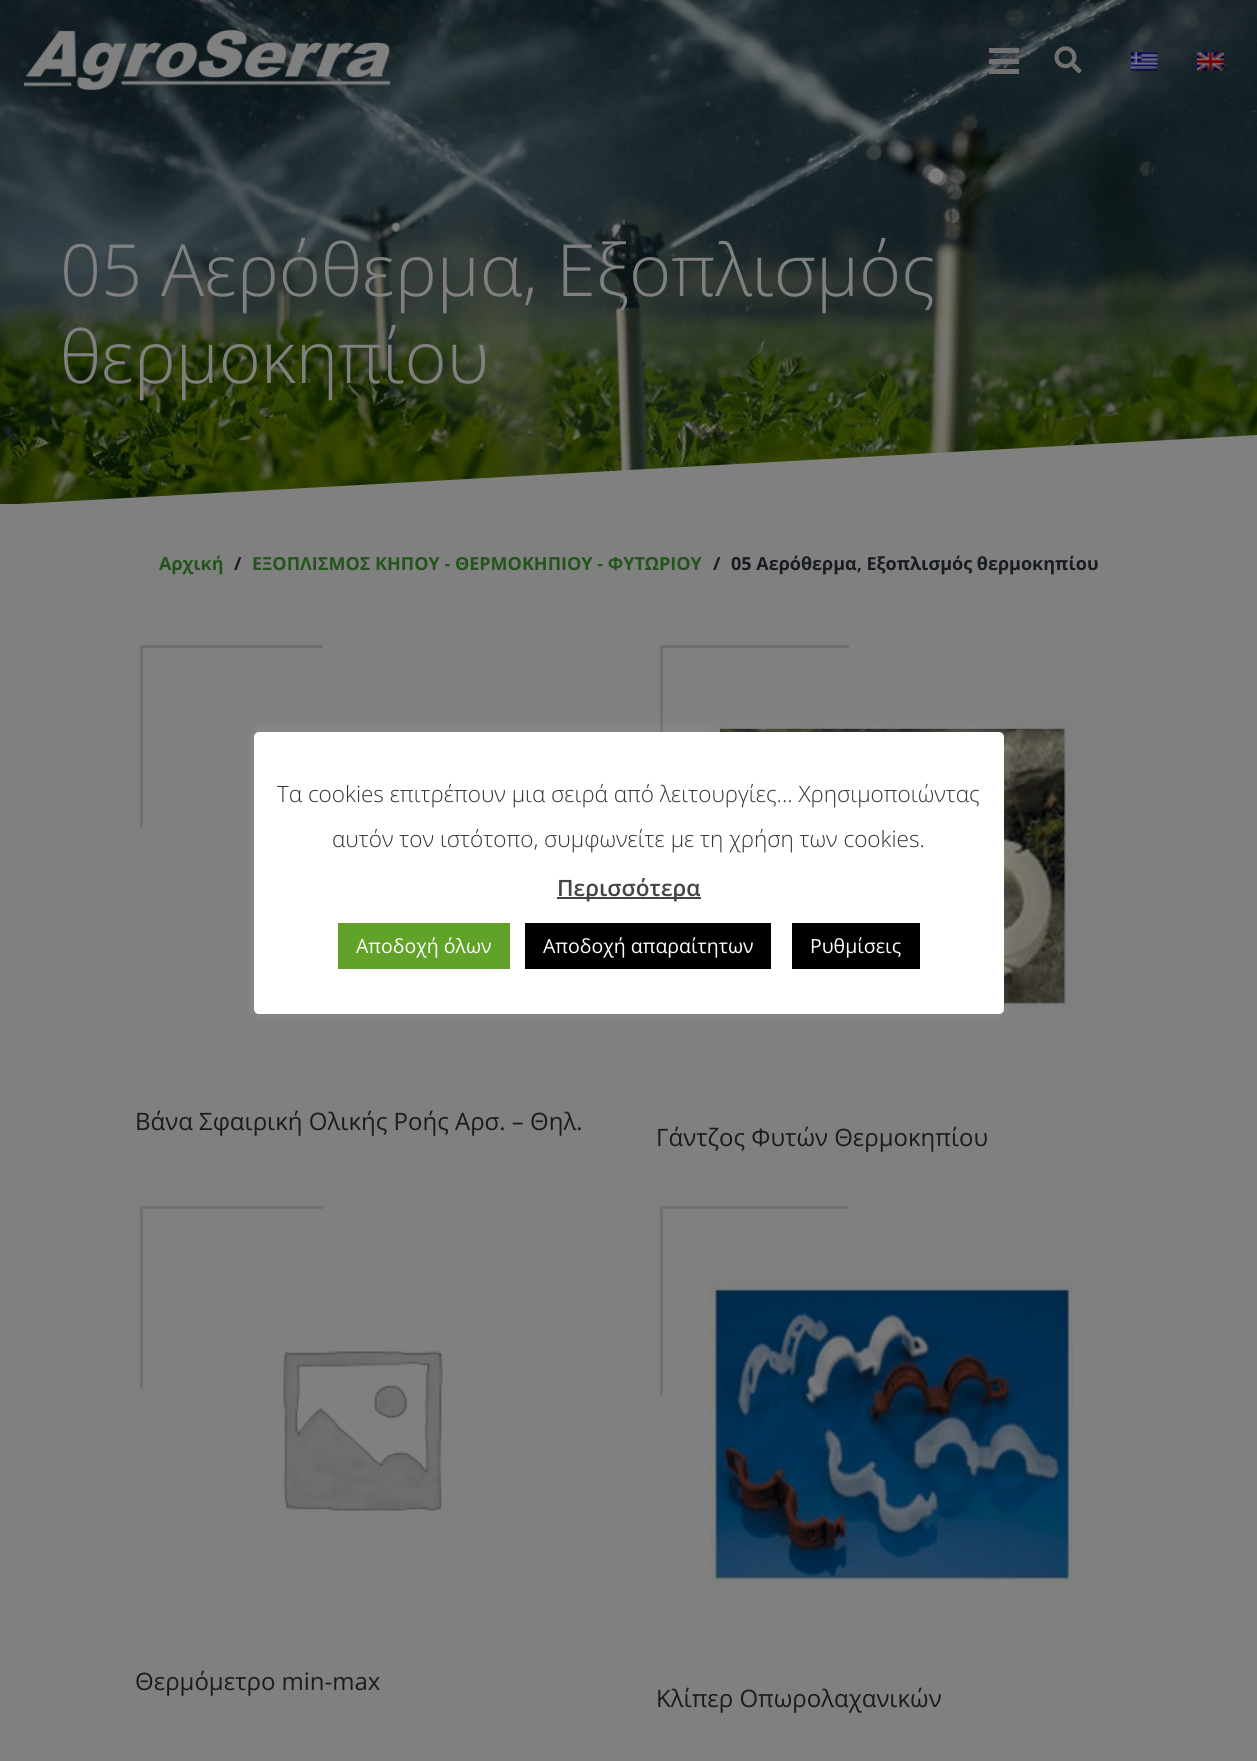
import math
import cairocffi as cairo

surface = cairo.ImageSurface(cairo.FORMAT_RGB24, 1257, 1761)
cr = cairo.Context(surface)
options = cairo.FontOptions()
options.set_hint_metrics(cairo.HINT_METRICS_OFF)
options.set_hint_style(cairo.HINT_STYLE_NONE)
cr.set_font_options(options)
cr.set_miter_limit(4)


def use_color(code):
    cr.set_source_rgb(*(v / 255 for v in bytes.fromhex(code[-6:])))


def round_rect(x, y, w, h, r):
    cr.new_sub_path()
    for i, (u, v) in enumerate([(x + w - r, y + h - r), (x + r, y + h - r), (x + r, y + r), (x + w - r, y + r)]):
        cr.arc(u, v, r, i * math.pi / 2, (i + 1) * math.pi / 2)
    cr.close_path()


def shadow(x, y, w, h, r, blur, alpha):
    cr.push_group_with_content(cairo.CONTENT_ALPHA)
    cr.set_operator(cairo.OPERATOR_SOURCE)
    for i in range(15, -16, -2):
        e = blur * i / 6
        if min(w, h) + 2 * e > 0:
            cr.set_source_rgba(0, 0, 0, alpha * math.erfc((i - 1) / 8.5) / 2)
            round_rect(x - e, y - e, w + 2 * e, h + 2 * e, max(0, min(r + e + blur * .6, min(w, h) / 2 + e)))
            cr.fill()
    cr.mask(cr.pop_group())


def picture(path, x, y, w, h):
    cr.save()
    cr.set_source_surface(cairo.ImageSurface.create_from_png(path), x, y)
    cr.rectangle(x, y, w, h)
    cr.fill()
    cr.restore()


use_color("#808080")
cr.paint()
picture("img5.png", 0, 0, 1257, 504)
picture("img1.png", 24, 30, 366, 60)
use_color("#717171")
cr.rectangle(989, 59, 30, 5)
cr.fill()
cr.rectangle(989, 48, 30, 5)
cr.fill()
cr.rectangle(989, 69, 30, 5)
cr.fill()
picture("img2.png", 1054, 46, 28, 28)
picture("img3.png", 1131, 52, 27, 19)
picture("img4.png", 1197, 52, 27, 19)
cr.select_font_face("Open Sans Light")
cr.set_font_size(72)
use_color("#808080")
cr.move_to(60, 296)
cr.show_text("05 Αερόθερμα, Εξοπλισμός")
cr.move_to(60, 383)
cr.show_text("θερμοκηπίου")
cr.save()
cr.rectangle(0, 435, 1257, 71)
cr.clip()
cr.new_path()
cr.move_to(0, 505)
cr.line_to(0, 523)
cr.line_to(1257, 523)
cr.line_to(1257, 435)
cr.close_path()
cr.fill()
cr.restore()
cr.select_font_face("Open Sans", cairo.FONT_SLANT_NORMAL, cairo.FONT_WEIGHT_BOLD)
cr.set_font_size(18)
use_color("#215519")
cr.move_to(159, 570)
cr.show_text("Αρχική")
use_color("#181b20")
cr.move_to(234, 570)
cr.show_text("/")
use_color("#215519")
cr.move_to(252, 570)
cr.show_text("ΕΞΟΠΛΙΣΜΟΣ ΚΗΠΟΥ - ΘΕΡΜΟΚΗΠΙΟΥ - ΦΥΤΩΡΙΟΥ")
use_color("#181b20")
cr.move_to(713, 570)
cr.show_text("/")
cr.move_to(731, 570)
cr.show_text("05 Αερόθερμα, Εξοπλισμός θερμοκηπίου")
use_color("#717171")
cr.rectangle(140, 645, 183, 3)
cr.fill()
cr.rectangle(140, 645, 3, 183)
cr.fill()
cr.select_font_face("Open Sans")
cr.set_font_size(24)
use_color("#181b20")
cr.move_to(135, 1130)
cr.show_text("Βάνα Σφαιρική Ολικής Ροής Αρσ. – Θηλ.")
use_color("#717171")
cr.rectangle(660, 645, 189, 3)
cr.fill()
cr.rectangle(660, 645, 3, 87)
cr.fill()
picture("img6.png", 710, 713, 363, 299)
use_color("#181b20")
cr.move_to(656, 1146)
cr.show_text("Γάντζος Φυτών Θερμοκηπίου")
use_color("#717171")
cr.rectangle(140, 1206, 183, 3)
cr.fill()
cr.rectangle(140, 1206, 3, 183)
cr.fill()
picture("img7.png", 283, 1351, 160, 160)
use_color("#181b20")
cr.move_to(135, 1690)
cr.show_text("Θερμόμετρο min-max")
use_color("#717171")
cr.rectangle(660, 1206, 189, 3)
cr.fill()
cr.rectangle(660, 1206, 3, 189)
cr.fill()
picture("img8.png", 709, 1276, 365, 307)
use_color("#181b20")
cr.move_to(656, 1707)
cr.show_text("Κλίπερ Οπωρολαχανικών")
use_color("#acabab")
shadow(254, 731, 750, 282, 5, 7.5, 0.3)
use_color("#ffffff")
round_rect(254, 732, 750, 282, 5)
cr.fill()
cr.select_font_face("Open Sans Light")
cr.set_font_size(22.5)
use_color("#333333")
cr.move_to(277, 802)
cr.show_text("Τα cookies επιτρέπουν μια σειρά από λειτουργίες... Χρησιμοποιώντας")
cr.move_to(332, 847)
cr.show_text("αυτόν τον ιστότοπο, συμφωνείτε με τη χρήση των cookies.")
use_color("#444444")
cr.rectangle(557, 897, 144, 2)
cr.fill()
cr.select_font_face("Open Sans SemiBold")
cr.move_to(557, 896)
cr.show_text("Περισσότερα")
use_color("#61a229")
cr.rectangle(338, 923, 172, 46)
cr.fill()
cr.select_font_face("Open Sans")
cr.set_font_size(19.5)
use_color("#ffffff")
cr.move_to(356, 953)
cr.show_text("Αποδοχή όλων")
use_color("#000000")
cr.rectangle(525, 923, 246, 46)
cr.fill()
use_color("#ffffff")
cr.move_to(543, 953)
cr.show_text("Αποδοχή απαραίτητων")
use_color("#000000")
cr.rectangle(792, 923, 128, 46)
cr.fill()
use_color("#ffffff")
cr.move_to(810, 953)
cr.show_text("Ρυθμίσεις")
surface.write_to_png("result.png")
